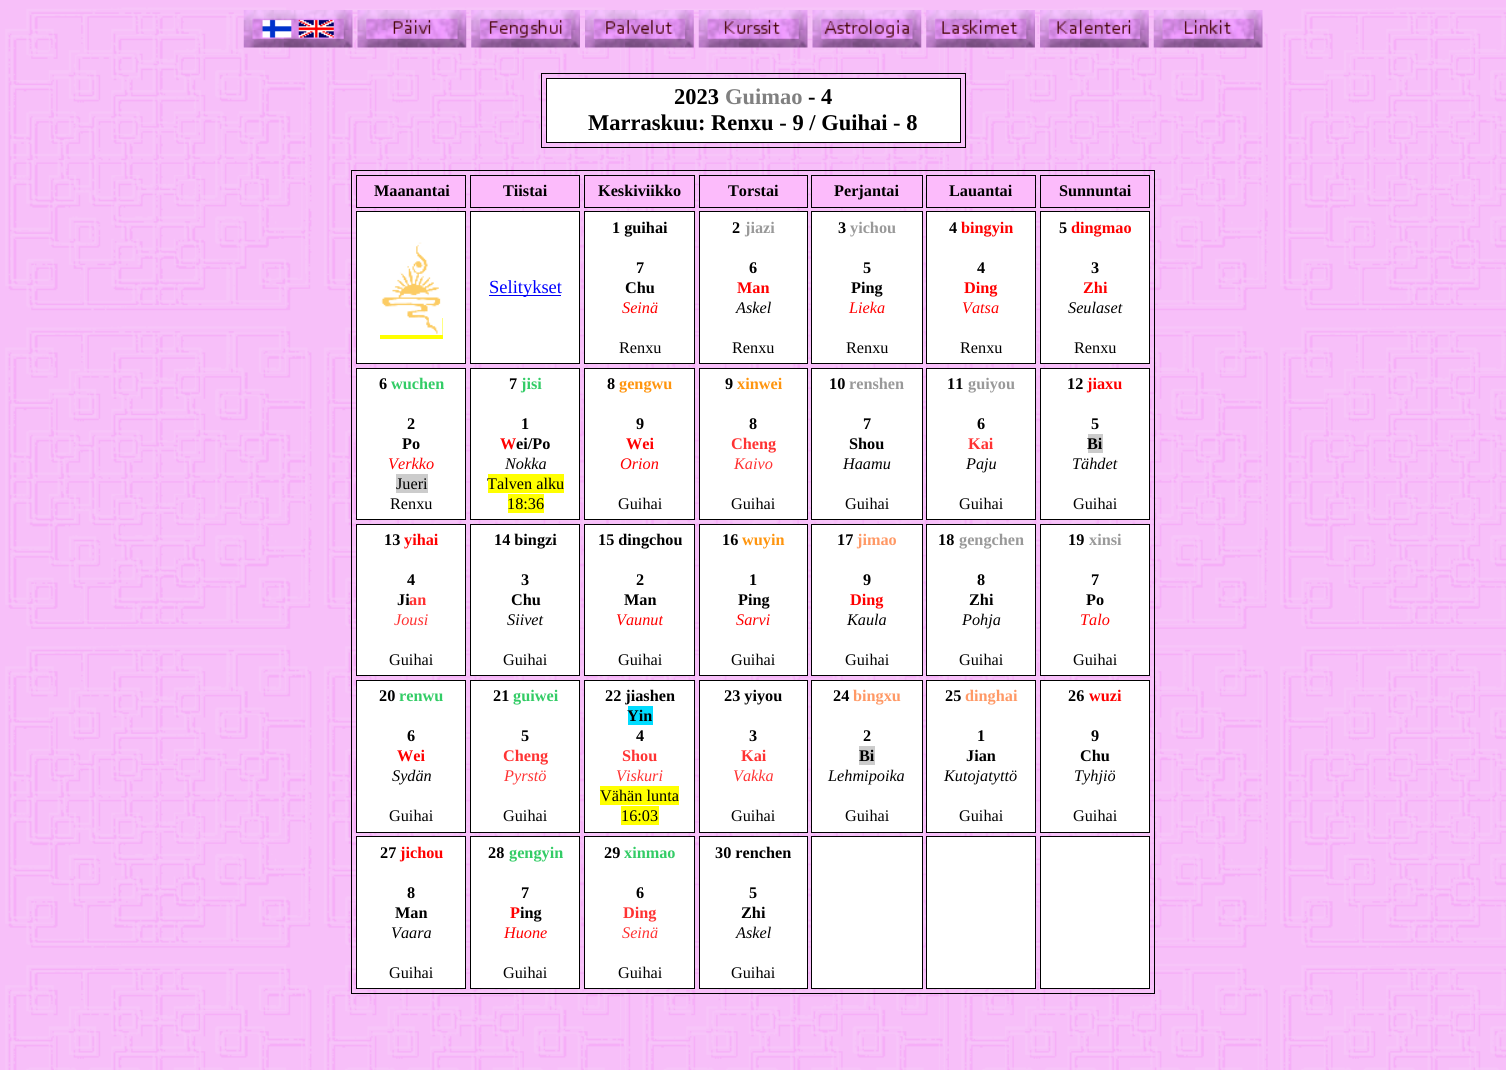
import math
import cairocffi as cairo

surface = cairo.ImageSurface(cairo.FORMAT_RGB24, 1506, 1070)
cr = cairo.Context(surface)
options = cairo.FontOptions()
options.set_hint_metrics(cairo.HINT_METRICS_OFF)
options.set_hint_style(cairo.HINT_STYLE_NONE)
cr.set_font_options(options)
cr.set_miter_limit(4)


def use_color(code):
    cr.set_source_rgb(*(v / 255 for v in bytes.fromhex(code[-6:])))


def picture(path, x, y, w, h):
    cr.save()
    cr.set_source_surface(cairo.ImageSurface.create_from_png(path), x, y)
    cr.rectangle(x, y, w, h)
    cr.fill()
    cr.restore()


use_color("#ffffff")
cr.paint()
picture("img1.png", 0, 0, 1506, 1070)
picture("img2.png", 243, 10, 110, 38)
picture("img3.png", 357, 10, 110, 38)
picture("img4.png", 471, 10, 109, 38)
picture("img5.png", 585, 10, 109, 38)
picture("img6.png", 698, 10, 110, 38)
picture("img7.png", 812, 10, 110, 38)
picture("img8.png", 926, 10, 109, 38)
picture("img9.png", 1040, 10, 109, 38)
picture("img10.png", 1153, 10, 110, 38)
cr.rectangle(541.5, 73.5, 424, 74)
use_color("#000000")
cr.set_line_width(1)
cr.stroke()
use_color("#ffffff")
cr.rectangle(546.5, 78.5, 414, 64)
cr.fill_preserve()
use_color("#000000")
cr.stroke()
cr.select_font_face("Liberation Serif", cairo.FONT_SLANT_NORMAL, cairo.FONT_WEIGHT_BOLD)
cr.set_font_size(22.5)
cr.move_to(674, 104)
cr.show_text("2023")
use_color("#808080")
cr.move_to(725, 104)
cr.show_text("Guimao")
use_color("#000000")
cr.move_to(808, 104)
cr.show_text("- 4")
cr.move_to(588, 130)
cr.show_text("Marraskuu: Renxu - 9 / Guihai - 8")
cr.rectangle(351.5, 170.5, 803, 823)
cr.stroke()
use_color("#fcbbfb")
cr.rectangle(356.5, 175.5, 109, 32)
cr.fill_preserve()
use_color("#000000")
cr.stroke()
cr.set_font_size(16.25)
cr.move_to(374, 196)
cr.show_text("Maanantai")
use_color("#fcbbfb")
cr.rectangle(470.5, 175.5, 109, 32)
cr.fill_preserve()
use_color("#000000")
cr.stroke()
cr.move_to(503, 196)
cr.show_text("Tiistai")
use_color("#fcbbfb")
cr.rectangle(584.5, 175.5, 110, 32)
cr.fill_preserve()
use_color("#000000")
cr.stroke()
cr.move_to(598, 196)
cr.show_text("Keskiviikko")
use_color("#fcbbfb")
cr.rectangle(699.5, 175.5, 108, 32)
cr.fill_preserve()
use_color("#000000")
cr.stroke()
cr.move_to(728, 196)
cr.show_text("Torstai")
use_color("#fcbbfb")
cr.rectangle(811.5, 175.5, 111, 32)
cr.fill_preserve()
use_color("#000000")
cr.stroke()
cr.move_to(834, 196)
cr.show_text("Perjantai")
use_color("#fcbbfb")
cr.rectangle(926.5, 175.5, 109, 32)
cr.fill_preserve()
use_color("#000000")
cr.stroke()
cr.move_to(949, 196)
cr.show_text("Lauantai")
use_color("#fcbbfb")
cr.rectangle(1040.5, 175.5, 109, 32)
cr.fill_preserve()
use_color("#000000")
cr.stroke()
cr.move_to(1059, 196)
cr.show_text("Sunnuntai")
use_color("#ffffff")
cr.rectangle(356.5, 211.5, 109, 152)
cr.fill_preserve()
use_color("#000000")
cr.stroke()
use_color("#ffff00")
cr.rectangle(380, 318, 63, 21)
cr.fill()
picture("img11.png", 380, 242, 63, 93)
use_color("#ffffff")
cr.rectangle(470.5, 211.5, 109, 152)
cr.fill_preserve()
use_color("#000000")
cr.stroke()
use_color("#0000ee")
cr.rectangle(489, 295, 72, 1)
cr.fill()
cr.select_font_face("Liberation Serif")
cr.set_font_size(18.5)
use_color("#0000ff")
cr.move_to(489, 293)
cr.show_text("Selitykset")
use_color("#ffffff")
cr.rectangle(584.5, 211.5, 110, 152)
cr.fill_preserve()
use_color("#000000")
cr.stroke()
cr.select_font_face("Liberation Serif", cairo.FONT_SLANT_NORMAL, cairo.FONT_WEIGHT_BOLD)
cr.set_font_size(16.25)
cr.move_to(612, 233)
cr.show_text("1 guihai")
cr.move_to(636, 273)
cr.show_text("7")
cr.move_to(625, 293)
cr.show_text("Chu")
cr.select_font_face("Liberation Serif", cairo.FONT_SLANT_ITALIC)
use_color("#ff0000")
cr.move_to(622, 313)
cr.show_text("Seinä")
cr.select_font_face("Liberation Serif")
use_color("#000000")
cr.move_to(619, 353)
cr.show_text("Renxu")
use_color("#ffffff")
cr.rectangle(699.5, 211.5, 108, 152)
cr.fill_preserve()
use_color("#000000")
cr.stroke()
cr.select_font_face("Liberation Serif", cairo.FONT_SLANT_NORMAL, cairo.FONT_WEIGHT_BOLD)
cr.move_to(732, 233)
cr.show_text("2")
use_color("#999999")
cr.move_to(745, 233)
cr.show_text("jiazi")
use_color("#000000")
cr.move_to(749, 273)
cr.show_text("6")
use_color("#ff0000")
cr.move_to(737, 293)
cr.show_text("Man")
cr.select_font_face("Liberation Serif", cairo.FONT_SLANT_ITALIC)
use_color("#000000")
cr.move_to(736, 313)
cr.show_text("Askel")
cr.select_font_face("Liberation Serif")
cr.move_to(732, 353)
cr.show_text("Renxu")
use_color("#ffffff")
cr.rectangle(811.5, 211.5, 111, 152)
cr.fill_preserve()
use_color("#000000")
cr.stroke()
cr.select_font_face("Liberation Serif", cairo.FONT_SLANT_NORMAL, cairo.FONT_WEIGHT_BOLD)
cr.move_to(838, 233)
cr.show_text("3")
use_color("#999999")
cr.move_to(850, 233)
cr.show_text("yichou")
use_color("#000000")
cr.move_to(863, 273)
cr.show_text("5")
cr.move_to(851, 293)
cr.show_text("Ping")
cr.select_font_face("Liberation Serif", cairo.FONT_SLANT_ITALIC)
use_color("#ff0000")
cr.move_to(849, 313)
cr.show_text("Lieka")
cr.select_font_face("Liberation Serif")
use_color("#000000")
cr.move_to(846, 353)
cr.show_text("Renxu")
use_color("#ffffff")
cr.rectangle(926.5, 211.5, 109, 152)
cr.fill_preserve()
use_color("#000000")
cr.stroke()
cr.select_font_face("Liberation Serif", cairo.FONT_SLANT_NORMAL, cairo.FONT_WEIGHT_BOLD)
cr.move_to(949, 233)
cr.show_text("4")
use_color("#ff0000")
cr.move_to(961, 233)
cr.show_text("bingyin")
use_color("#000000")
cr.move_to(977, 273)
cr.show_text("4")
use_color("#ff0000")
cr.move_to(964, 293)
cr.show_text("Ding")
cr.select_font_face("Liberation Serif", cairo.FONT_SLANT_ITALIC)
cr.move_to(962, 313)
cr.show_text("Vatsa")
cr.select_font_face("Liberation Serif")
use_color("#000000")
cr.move_to(960, 353)
cr.show_text("Renxu")
use_color("#ffffff")
cr.rectangle(1040.5, 211.5, 109, 152)
cr.fill_preserve()
use_color("#000000")
cr.stroke()
cr.select_font_face("Liberation Serif", cairo.FONT_SLANT_NORMAL, cairo.FONT_WEIGHT_BOLD)
cr.move_to(1059, 233)
cr.show_text("5")
use_color("#ff0000")
cr.move_to(1071, 233)
cr.show_text("dingmao")
use_color("#000000")
cr.move_to(1091, 273)
cr.show_text("3")
use_color("#ff0000")
cr.move_to(1083, 293)
cr.show_text("Zhi")
cr.select_font_face("Liberation Serif", cairo.FONT_SLANT_ITALIC)
use_color("#000000")
cr.move_to(1068, 313)
cr.show_text("Seulaset")
cr.select_font_face("Liberation Serif")
cr.move_to(1074, 353)
cr.show_text("Renxu")
use_color("#ffffff")
cr.rectangle(356.5, 368.5, 109, 151)
cr.fill_preserve()
use_color("#000000")
cr.stroke()
cr.select_font_face("Liberation Serif", cairo.FONT_SLANT_NORMAL, cairo.FONT_WEIGHT_BOLD)
cr.move_to(379, 389)
cr.show_text("6")
use_color("#33cc66")
cr.move_to(391, 389)
cr.show_text("wuchen")
use_color("#000000")
cr.move_to(407, 429)
cr.show_text("2")
cr.move_to(402, 449)
cr.show_text("Po")
cr.select_font_face("Liberation Serif", cairo.FONT_SLANT_ITALIC)
use_color("#ff0000")
cr.move_to(388, 469)
cr.show_text("Verkko")
use_color("#cccccc")
cr.rectangle(396, 474, 32, 19)
cr.fill()
cr.select_font_face("Liberation Serif")
use_color("#000000")
cr.move_to(396, 489)
cr.show_text("Jueri")
cr.move_to(390, 509)
cr.show_text("Renxu")
use_color("#ffffff")
cr.rectangle(470.5, 368.5, 109, 151)
cr.fill_preserve()
use_color("#000000")
cr.stroke()
cr.select_font_face("Liberation Serif", cairo.FONT_SLANT_NORMAL, cairo.FONT_WEIGHT_BOLD)
cr.move_to(509, 389)
cr.show_text("7")
use_color("#33cc66")
cr.move_to(521, 389)
cr.show_text("jisi")
use_color("#000000")
cr.move_to(521, 429)
cr.show_text("1")
use_color("#ff0000")
cr.move_to(500, 449)
cr.show_text("W")
use_color("#000000")
cr.move_to(516, 449)
cr.show_text("ei/Po")
cr.select_font_face("Liberation Serif", cairo.FONT_SLANT_ITALIC)
cr.move_to(505, 469)
cr.show_text("Nokka")
use_color("#ffff00")
cr.rectangle(488, 474, 76, 19)
cr.fill()
cr.select_font_face("Liberation Serif")
use_color("#000000")
cr.move_to(487, 489)
cr.show_text("Talven alku")
use_color("#ffff00")
cr.rectangle(508, 494, 36, 19)
cr.fill()
use_color("#000000")
cr.move_to(507, 509)
cr.show_text("18:36")
use_color("#ffffff")
cr.rectangle(584.5, 368.5, 110, 151)
cr.fill_preserve()
use_color("#000000")
cr.stroke()
cr.select_font_face("Liberation Serif", cairo.FONT_SLANT_NORMAL, cairo.FONT_WEIGHT_BOLD)
cr.move_to(607, 389)
cr.show_text("8")
use_color("#ff950e")
cr.move_to(619, 389)
cr.show_text("gengwu")
use_color("#000000")
cr.move_to(636, 429)
cr.show_text("9")
use_color("#ff0000")
cr.move_to(626, 449)
cr.show_text("Wei")
cr.select_font_face("Liberation Serif", cairo.FONT_SLANT_ITALIC)
cr.move_to(620, 469)
cr.show_text("Orion")
cr.select_font_face("Liberation Serif")
use_color("#000000")
cr.move_to(618, 509)
cr.show_text("Guihai")
use_color("#ffffff")
cr.rectangle(699.5, 368.5, 108, 151)
cr.fill_preserve()
use_color("#000000")
cr.stroke()
cr.select_font_face("Liberation Serif", cairo.FONT_SLANT_NORMAL, cairo.FONT_WEIGHT_BOLD)
cr.move_to(725, 389)
cr.show_text("9")
use_color("#ff950e")
cr.move_to(737, 389)
cr.show_text("xinwei")
use_color("#000000")
cr.move_to(749, 429)
cr.show_text("8")
use_color("#ff3333")
cr.move_to(731, 449)
cr.show_text("Cheng")
cr.select_font_face("Liberation Serif", cairo.FONT_SLANT_ITALIC)
cr.move_to(734, 469)
cr.show_text("Kaivo")
cr.select_font_face("Liberation Serif")
use_color("#000000")
cr.move_to(731, 509)
cr.show_text("Guihai")
use_color("#ffffff")
cr.rectangle(811.5, 368.5, 111, 151)
cr.fill_preserve()
use_color("#000000")
cr.stroke()
cr.select_font_face("Liberation Serif", cairo.FONT_SLANT_NORMAL, cairo.FONT_WEIGHT_BOLD)
cr.move_to(829, 389)
cr.show_text("10")
use_color("#999999")
cr.move_to(849, 389)
cr.show_text("renshen")
use_color("#000000")
cr.move_to(863, 429)
cr.show_text("7")
cr.move_to(849, 449)
cr.show_text("Shou")
cr.select_font_face("Liberation Serif", cairo.FONT_SLANT_ITALIC)
cr.move_to(843, 469)
cr.show_text("Haamu")
cr.select_font_face("Liberation Serif")
cr.move_to(845, 509)
cr.show_text("Guihai")
use_color("#ffffff")
cr.rectangle(926.5, 368.5, 109, 151)
cr.fill_preserve()
use_color("#000000")
cr.stroke()
cr.select_font_face("Liberation Serif", cairo.FONT_SLANT_NORMAL, cairo.FONT_WEIGHT_BOLD)
cr.move_to(947, 389)
cr.show_text("11")
use_color("#999999")
cr.move_to(968, 389)
cr.show_text("guiyou")
use_color("#000000")
cr.move_to(977, 429)
cr.show_text("6")
use_color("#ff3333")
cr.move_to(968, 449)
cr.show_text("Kai")
cr.select_font_face("Liberation Serif", cairo.FONT_SLANT_ITALIC)
use_color("#000000")
cr.move_to(966, 469)
cr.show_text("Paju")
cr.select_font_face("Liberation Serif")
cr.move_to(959, 509)
cr.show_text("Guihai")
use_color("#ffffff")
cr.rectangle(1040.5, 368.5, 109, 151)
cr.fill_preserve()
use_color("#000000")
cr.stroke()
cr.select_font_face("Liberation Serif", cairo.FONT_SLANT_NORMAL, cairo.FONT_WEIGHT_BOLD)
cr.move_to(1067, 389)
cr.show_text("12")
use_color("#ff0000")
cr.move_to(1087, 389)
cr.show_text("jiaxu")
use_color("#000000")
cr.move_to(1091, 429)
cr.show_text("5")
use_color("#cccccc")
cr.rectangle(1088, 434, 15, 19)
cr.fill()
use_color("#000000")
cr.move_to(1087, 449)
cr.show_text("Bi")
cr.select_font_face("Liberation Serif", cairo.FONT_SLANT_ITALIC)
cr.move_to(1072, 469)
cr.show_text("Tähdet")
cr.select_font_face("Liberation Serif")
cr.move_to(1073, 509)
cr.show_text("Guihai")
use_color("#ffffff")
cr.rectangle(356.5, 524.5, 109, 151)
cr.fill_preserve()
use_color("#000000")
cr.stroke()
cr.select_font_face("Liberation Serif", cairo.FONT_SLANT_NORMAL, cairo.FONT_WEIGHT_BOLD)
cr.move_to(384, 545)
cr.show_text("13")
use_color("#ff0000")
cr.move_to(404, 545)
cr.show_text("yihai")
use_color("#000000")
cr.move_to(407, 585)
cr.show_text("4")
cr.move_to(397, 605)
cr.show_text("Ji")
use_color("#ff3333")
cr.move_to(409, 605)
cr.show_text("an")
cr.select_font_face("Liberation Serif", cairo.FONT_SLANT_ITALIC)
cr.move_to(394, 625)
cr.show_text("Jousi")
cr.select_font_face("Liberation Serif")
use_color("#000000")
cr.move_to(389, 665)
cr.show_text("Guihai")
use_color("#ffffff")
cr.rectangle(470.5, 524.5, 109, 151)
cr.fill_preserve()
use_color("#000000")
cr.stroke()
cr.select_font_face("Liberation Serif", cairo.FONT_SLANT_NORMAL, cairo.FONT_WEIGHT_BOLD)
cr.move_to(494, 545)
cr.show_text("14 bingzi")
cr.move_to(521, 585)
cr.show_text("3")
cr.move_to(511, 605)
cr.show_text("Chu")
cr.select_font_face("Liberation Serif", cairo.FONT_SLANT_ITALIC)
cr.move_to(507, 625)
cr.show_text("Siivet")
cr.select_font_face("Liberation Serif")
cr.move_to(503, 665)
cr.show_text("Guihai")
use_color("#ffffff")
cr.rectangle(584.5, 524.5, 110, 151)
cr.fill_preserve()
use_color("#000000")
cr.stroke()
cr.select_font_face("Liberation Serif", cairo.FONT_SLANT_NORMAL, cairo.FONT_WEIGHT_BOLD)
cr.move_to(598, 545)
cr.show_text("15 dingchou")
cr.move_to(636, 585)
cr.show_text("2")
cr.move_to(624, 605)
cr.show_text("Man")
cr.select_font_face("Liberation Serif", cairo.FONT_SLANT_ITALIC)
use_color("#ff0000")
cr.move_to(616, 625)
cr.show_text("Vaunut")
cr.select_font_face("Liberation Serif")
use_color("#000000")
cr.move_to(618, 665)
cr.show_text("Guihai")
use_color("#ffffff")
cr.rectangle(699.5, 524.5, 108, 151)
cr.fill_preserve()
use_color("#000000")
cr.stroke()
cr.select_font_face("Liberation Serif", cairo.FONT_SLANT_NORMAL, cairo.FONT_WEIGHT_BOLD)
cr.move_to(722, 545)
cr.show_text("16")
use_color("#ff950e")
cr.move_to(742, 545)
cr.show_text("wuyin")
use_color("#000000")
cr.move_to(749, 585)
cr.show_text("1")
cr.move_to(738, 605)
cr.show_text("Ping")
cr.select_font_face("Liberation Serif", cairo.FONT_SLANT_ITALIC)
use_color("#ff0000")
cr.move_to(736, 625)
cr.show_text("Sarvi")
cr.select_font_face("Liberation Serif")
use_color("#000000")
cr.move_to(731, 665)
cr.show_text("Guihai")
use_color("#ffffff")
cr.rectangle(811.5, 524.5, 111, 151)
cr.fill_preserve()
use_color("#000000")
cr.stroke()
cr.select_font_face("Liberation Serif", cairo.FONT_SLANT_NORMAL, cairo.FONT_WEIGHT_BOLD)
cr.move_to(837, 545)
cr.show_text("17")
use_color("#ff9966")
cr.move_to(857, 545)
cr.show_text("jimao")
use_color("#000000")
cr.move_to(863, 585)
cr.show_text("9")
use_color("#ff0000")
cr.move_to(850, 605)
cr.show_text("Ding")
cr.select_font_face("Liberation Serif", cairo.FONT_SLANT_ITALIC)
use_color("#000000")
cr.move_to(847, 625)
cr.show_text("Kaula")
cr.select_font_face("Liberation Serif")
cr.move_to(845, 665)
cr.show_text("Guihai")
use_color("#ffffff")
cr.rectangle(926.5, 524.5, 109, 151)
cr.fill_preserve()
use_color("#000000")
cr.stroke()
cr.select_font_face("Liberation Serif", cairo.FONT_SLANT_NORMAL, cairo.FONT_WEIGHT_BOLD)
cr.move_to(938, 545)
cr.show_text("18")
use_color("#999999")
cr.move_to(959, 545)
cr.show_text("gengchen")
use_color("#000000")
cr.move_to(977, 585)
cr.show_text("8")
cr.move_to(969, 605)
cr.show_text("Zhi")
cr.select_font_face("Liberation Serif", cairo.FONT_SLANT_ITALIC)
cr.move_to(962, 625)
cr.show_text("Pohja")
cr.select_font_face("Liberation Serif")
cr.move_to(959, 665)
cr.show_text("Guihai")
use_color("#ffffff")
cr.rectangle(1040.5, 524.5, 109, 151)
cr.fill_preserve()
use_color("#000000")
cr.stroke()
cr.select_font_face("Liberation Serif", cairo.FONT_SLANT_NORMAL, cairo.FONT_WEIGHT_BOLD)
cr.move_to(1068, 545)
cr.show_text("19")
use_color("#999999")
cr.move_to(1089, 545)
cr.show_text("xinsi")
use_color("#000000")
cr.move_to(1091, 585)
cr.show_text("7")
cr.move_to(1086, 605)
cr.show_text("Po")
cr.select_font_face("Liberation Serif", cairo.FONT_SLANT_ITALIC)
use_color("#ff0000")
cr.move_to(1080, 625)
cr.show_text("Talo")
cr.select_font_face("Liberation Serif")
use_color("#000000")
cr.move_to(1073, 665)
cr.show_text("Guihai")
use_color("#ffffff")
cr.rectangle(356.5, 680.5, 109, 152)
cr.fill_preserve()
use_color("#000000")
cr.stroke()
cr.select_font_face("Liberation Serif", cairo.FONT_SLANT_NORMAL, cairo.FONT_WEIGHT_BOLD)
cr.move_to(379, 701)
cr.show_text("20")
use_color("#33cc66")
cr.move_to(399, 701)
cr.show_text("renwu")
use_color("#000000")
cr.move_to(407, 741)
cr.show_text("6")
use_color("#ff0000")
cr.move_to(397, 761)
cr.show_text("Wei")
cr.select_font_face("Liberation Serif", cairo.FONT_SLANT_ITALIC)
use_color("#000000")
cr.move_to(392, 781)
cr.show_text("Sydän")
cr.select_font_face("Liberation Serif")
cr.move_to(389, 821)
cr.show_text("Guihai")
use_color("#ffffff")
cr.rectangle(470.5, 680.5, 109, 152)
cr.fill_preserve()
use_color("#000000")
cr.stroke()
cr.select_font_face("Liberation Serif", cairo.FONT_SLANT_NORMAL, cairo.FONT_WEIGHT_BOLD)
cr.move_to(493, 701)
cr.show_text("21")
use_color("#33cc66")
cr.move_to(513, 701)
cr.show_text("guiwei")
use_color("#000000")
cr.move_to(521, 741)
cr.show_text("5")
use_color("#ff3333")
cr.move_to(503, 761)
cr.show_text("Cheng")
cr.select_font_face("Liberation Serif", cairo.FONT_SLANT_ITALIC)
cr.move_to(504, 781)
cr.show_text("Pyrstö")
cr.select_font_face("Liberation Serif")
use_color("#000000")
cr.move_to(503, 821)
cr.show_text("Guihai")
use_color("#ffffff")
cr.rectangle(584.5, 680.5, 110, 152)
cr.fill_preserve()
use_color("#000000")
cr.stroke()
cr.select_font_face("Liberation Serif", cairo.FONT_SLANT_NORMAL, cairo.FONT_WEIGHT_BOLD)
cr.move_to(605, 701)
cr.show_text("22 jiashen")
use_color("#00dcff")
cr.rectangle(628, 706, 25, 19)
cr.fill()
use_color("#000000")
cr.move_to(627, 721)
cr.show_text("Yin")
cr.move_to(636, 741)
cr.show_text("4")
use_color("#ff3333")
cr.move_to(622, 761)
cr.show_text("Shou")
cr.select_font_face("Liberation Serif", cairo.FONT_SLANT_ITALIC)
cr.move_to(616, 781)
cr.show_text("Viskuri")
use_color("#ffff00")
cr.rectangle(600, 786, 79, 19)
cr.fill()
cr.select_font_face("Liberation Serif")
use_color("#000000")
cr.move_to(600, 801)
cr.show_text("Vähän lunta")
use_color("#ffff00")
cr.rectangle(621, 806, 38, 19)
cr.fill()
use_color("#000000")
cr.move_to(621, 821)
cr.show_text("16:03")
use_color("#ffffff")
cr.rectangle(699.5, 680.5, 108, 152)
cr.fill_preserve()
use_color("#000000")
cr.stroke()
cr.select_font_face("Liberation Serif", cairo.FONT_SLANT_NORMAL, cairo.FONT_WEIGHT_BOLD)
cr.move_to(724, 701)
cr.show_text("23 yiyou")
cr.move_to(749, 741)
cr.show_text("3")
use_color("#ff3333")
cr.move_to(741, 761)
cr.show_text("Kai")
cr.select_font_face("Liberation Serif", cairo.FONT_SLANT_ITALIC)
cr.move_to(733, 781)
cr.show_text("Vakka")
cr.select_font_face("Liberation Serif")
use_color("#000000")
cr.move_to(731, 821)
cr.show_text("Guihai")
use_color("#ffffff")
cr.rectangle(811.5, 680.5, 111, 152)
cr.fill_preserve()
use_color("#000000")
cr.stroke()
cr.select_font_face("Liberation Serif", cairo.FONT_SLANT_NORMAL, cairo.FONT_WEIGHT_BOLD)
cr.move_to(833, 701)
cr.show_text("24")
use_color("#ff9966")
cr.move_to(853, 701)
cr.show_text("bingxu")
use_color("#000000")
cr.move_to(863, 741)
cr.show_text("2")
use_color("#cccccc")
cr.rectangle(859, 746, 16, 19)
cr.fill()
use_color("#000000")
cr.move_to(859, 761)
cr.show_text("Bi")
cr.select_font_face("Liberation Serif", cairo.FONT_SLANT_ITALIC)
cr.move_to(828, 781)
cr.show_text("Lehmipoika")
cr.select_font_face("Liberation Serif")
cr.move_to(845, 821)
cr.show_text("Guihai")
use_color("#ffffff")
cr.rectangle(926.5, 680.5, 109, 152)
cr.fill_preserve()
use_color("#000000")
cr.stroke()
cr.select_font_face("Liberation Serif", cairo.FONT_SLANT_NORMAL, cairo.FONT_WEIGHT_BOLD)
cr.move_to(945, 701)
cr.show_text("25")
use_color("#ff9966")
cr.move_to(965, 701)
cr.show_text("dinghai")
use_color("#000000")
cr.move_to(977, 741)
cr.show_text("1")
cr.move_to(966, 761)
cr.show_text("Jian")
cr.select_font_face("Liberation Serif", cairo.FONT_SLANT_ITALIC)
cr.move_to(944, 781)
cr.show_text("Kutojatyttö")
cr.select_font_face("Liberation Serif")
cr.move_to(959, 821)
cr.show_text("Guihai")
use_color("#ffffff")
cr.rectangle(1040.5, 680.5, 109, 152)
cr.fill_preserve()
use_color("#000000")
cr.stroke()
cr.select_font_face("Liberation Serif", cairo.FONT_SLANT_NORMAL, cairo.FONT_WEIGHT_BOLD)
cr.move_to(1068, 701)
cr.show_text("26")
use_color("#ff0000")
cr.move_to(1089, 701)
cr.show_text("wuzi")
use_color("#000000")
cr.move_to(1091, 741)
cr.show_text("9")
cr.move_to(1080, 761)
cr.show_text("Chu")
cr.select_font_face("Liberation Serif", cairo.FONT_SLANT_ITALIC)
cr.move_to(1074, 781)
cr.show_text("Tyhjiö")
cr.select_font_face("Liberation Serif")
cr.move_to(1073, 821)
cr.show_text("Guihai")
use_color("#ffffff")
cr.rectangle(356.5, 836.5, 109, 152)
cr.fill_preserve()
use_color("#000000")
cr.stroke()
cr.select_font_face("Liberation Serif", cairo.FONT_SLANT_NORMAL, cairo.FONT_WEIGHT_BOLD)
cr.move_to(380, 858)
cr.show_text("27")
use_color("#ff0000")
cr.move_to(400, 858)
cr.show_text("jichou")
use_color("#000000")
cr.move_to(407, 898)
cr.show_text("8")
cr.move_to(395, 918)
cr.show_text("Man")
cr.select_font_face("Liberation Serif", cairo.FONT_SLANT_ITALIC)
cr.move_to(391, 938)
cr.show_text("Vaara")
cr.select_font_face("Liberation Serif")
cr.move_to(389, 978)
cr.show_text("Guihai")
use_color("#ffffff")
cr.rectangle(470.5, 836.5, 109, 152)
cr.fill_preserve()
use_color("#000000")
cr.stroke()
cr.select_font_face("Liberation Serif", cairo.FONT_SLANT_NORMAL, cairo.FONT_WEIGHT_BOLD)
cr.move_to(488, 858)
cr.show_text("28")
use_color("#33cc66")
cr.move_to(509, 858)
cr.show_text("gengyin")
use_color("#000000")
cr.move_to(521, 898)
cr.show_text("7")
use_color("#ff0000")
cr.move_to(510, 918)
cr.show_text("P")
use_color("#000000")
cr.move_to(520, 918)
cr.show_text("ing")
cr.select_font_face("Liberation Serif", cairo.FONT_SLANT_ITALIC)
use_color("#ff0000")
cr.move_to(504, 938)
cr.show_text("Huone")
cr.select_font_face("Liberation Serif")
use_color("#000000")
cr.move_to(503, 978)
cr.show_text("Guihai")
use_color("#ffffff")
cr.rectangle(584.5, 836.5, 110, 152)
cr.fill_preserve()
use_color("#000000")
cr.stroke()
cr.select_font_face("Liberation Serif", cairo.FONT_SLANT_NORMAL, cairo.FONT_WEIGHT_BOLD)
cr.move_to(604, 858)
cr.show_text("29")
use_color("#33cc66")
cr.move_to(624, 858)
cr.show_text("xinmao")
use_color("#000000")
cr.move_to(636, 898)
cr.show_text("6")
use_color("#ff3333")
cr.move_to(623, 918)
cr.show_text("Ding")
cr.select_font_face("Liberation Serif", cairo.FONT_SLANT_ITALIC)
cr.move_to(622, 938)
cr.show_text("Seinä")
cr.select_font_face("Liberation Serif")
use_color("#000000")
cr.move_to(618, 978)
cr.show_text("Guihai")
use_color("#ffffff")
cr.rectangle(699.5, 836.5, 108, 152)
cr.fill_preserve()
use_color("#000000")
cr.stroke()
cr.select_font_face("Liberation Serif", cairo.FONT_SLANT_NORMAL, cairo.FONT_WEIGHT_BOLD)
cr.move_to(715, 858)
cr.show_text("30 renchen")
cr.move_to(749, 898)
cr.show_text("5")
cr.move_to(741, 918)
cr.show_text("Zhi")
cr.select_font_face("Liberation Serif", cairo.FONT_SLANT_ITALIC)
cr.move_to(736, 938)
cr.show_text("Askel")
cr.select_font_face("Liberation Serif")
cr.move_to(731, 978)
cr.show_text("Guihai")
use_color("#ffffff")
cr.rectangle(811.5, 836.5, 111, 152)
cr.fill_preserve()
use_color("#000000")
cr.stroke()
use_color("#ffffff")
cr.rectangle(926.5, 836.5, 109, 152)
cr.fill_preserve()
use_color("#000000")
cr.stroke()
use_color("#ffffff")
cr.rectangle(1040.5, 836.5, 109, 152)
cr.fill_preserve()
use_color("#000000")
cr.stroke()
surface.write_to_png("result.png")
